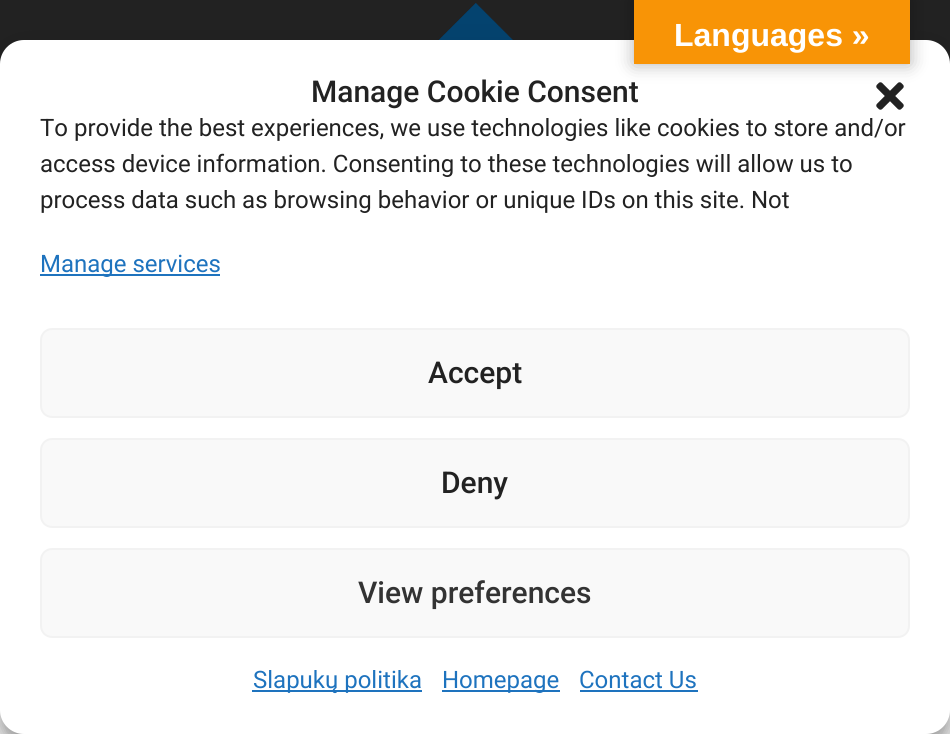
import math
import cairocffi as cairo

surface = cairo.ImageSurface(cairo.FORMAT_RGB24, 950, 734)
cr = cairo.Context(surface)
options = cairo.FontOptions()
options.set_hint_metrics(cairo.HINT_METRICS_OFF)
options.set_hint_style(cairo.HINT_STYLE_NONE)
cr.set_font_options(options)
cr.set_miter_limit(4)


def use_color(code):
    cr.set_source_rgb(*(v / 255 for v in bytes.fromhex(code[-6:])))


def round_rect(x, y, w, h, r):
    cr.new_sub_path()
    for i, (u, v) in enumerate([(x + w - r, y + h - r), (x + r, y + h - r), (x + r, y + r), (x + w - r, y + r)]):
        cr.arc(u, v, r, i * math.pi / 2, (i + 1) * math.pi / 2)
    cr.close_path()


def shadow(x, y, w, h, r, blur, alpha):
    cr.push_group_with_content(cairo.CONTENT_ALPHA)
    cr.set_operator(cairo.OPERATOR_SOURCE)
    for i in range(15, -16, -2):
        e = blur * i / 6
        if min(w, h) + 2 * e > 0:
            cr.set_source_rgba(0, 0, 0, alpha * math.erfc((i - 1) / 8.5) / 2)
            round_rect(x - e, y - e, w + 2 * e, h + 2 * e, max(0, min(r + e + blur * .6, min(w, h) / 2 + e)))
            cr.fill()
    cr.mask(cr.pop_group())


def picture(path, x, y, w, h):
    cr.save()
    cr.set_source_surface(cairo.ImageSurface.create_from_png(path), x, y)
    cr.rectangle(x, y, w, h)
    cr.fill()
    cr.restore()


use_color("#f8f8f8")
cr.paint()
use_color("#222222")
cr.rectangle(0, 0, 950, 64)
cr.fill()
picture("img1.png", 438, 3, 75, 37)
use_color("#000000")
shadow(0, 52, 950, 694, 24, 6, 0.23)
shadow(0, 60, 950, 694, 24, 20, 0.19)
use_color("#ffffff")
round_rect(0, 40, 950, 694, 24)
cr.fill()
picture("img2.png", 876, 82, 28, 28)
use_color("#000000")
shadow(634, 0, 276, 64, 0, 9, 0.3)
use_color("#f89406")
cr.rectangle(634, 0, 276, 64)
cr.fill()
cr.select_font_face("Liberation Sans", cairo.FONT_SLANT_NORMAL, cairo.FONT_WEIGHT_BOLD)
cr.set_font_size(32)
use_color("#ffffff")
cr.move_to(674, 46)
cr.show_text("Languages »")
cr.select_font_face("Roboto Medium")
cr.set_font_size(30)
use_color("#222222")
cr.move_to(311, 102)
cr.show_text("Manage Cookie Consent")
cr.select_font_face("Roboto")
cr.set_font_size(24)
cr.move_to(40, 136)
cr.show_text("To provide the best experiences, we use technologies like cookies to store and/or")
cr.move_to(40, 172)
cr.show_text("access device information. Consenting to these technologies will allow us to")
cr.move_to(40, 208)
cr.show_text("process data such as browsing behavior or unique IDs on this site. Not")
use_color("#1e73be")
cr.rectangle(40, 274, 180, 2)
cr.fill()
cr.move_to(40, 272)
cr.show_text("Manage services")
use_color("#f9f9f9")
round_rect(41, 329, 868, 88, 11)
cr.fill_preserve()
use_color("#f2f2f2")
cr.stroke()
cr.select_font_face("Roboto Medium")
cr.set_font_size(30)
use_color("#222222")
cr.move_to(428, 383)
cr.show_text("Accept")
use_color("#f9f9f9")
round_rect(41, 439, 868, 88, 11)
cr.fill_preserve()
use_color("#f2f2f2")
cr.stroke()
use_color("#222222")
cr.move_to(441, 493)
cr.show_text("Deny")
use_color("#f9f9f9")
round_rect(41, 549, 868, 88, 11)
cr.fill_preserve()
use_color("#f2f2f2")
cr.stroke()
use_color("#333333")
cr.move_to(358, 603)
cr.show_text("View preferences")
use_color("#1e73be")
cr.rectangle(252, 690, 170, 2)
cr.fill()
cr.select_font_face("Roboto")
cr.set_font_size(24)
cr.move_to(253, 688)
cr.show_text("Slapukų politika")
cr.rectangle(442, 690, 118, 2)
cr.fill()
cr.move_to(442, 688)
cr.show_text("Homepage")
cr.move_to(579, 688)
cr.show_text("Contact Us")
cr.rectangle(580, 690, 118, 2)
cr.fill()
surface.write_to_png("result.png")
